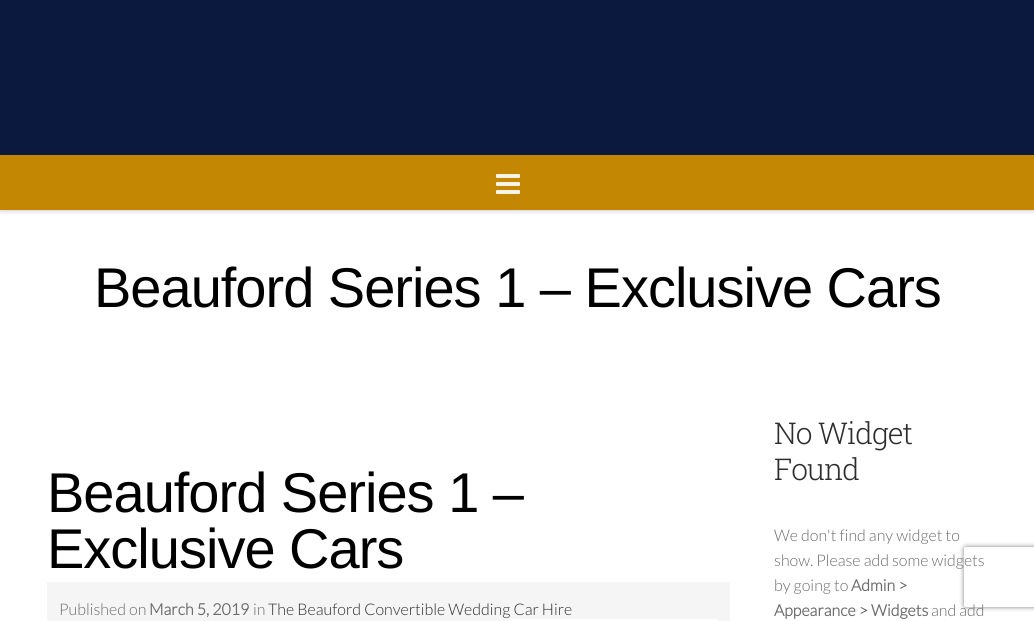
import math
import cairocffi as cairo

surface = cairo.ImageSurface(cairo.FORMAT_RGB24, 1034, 621)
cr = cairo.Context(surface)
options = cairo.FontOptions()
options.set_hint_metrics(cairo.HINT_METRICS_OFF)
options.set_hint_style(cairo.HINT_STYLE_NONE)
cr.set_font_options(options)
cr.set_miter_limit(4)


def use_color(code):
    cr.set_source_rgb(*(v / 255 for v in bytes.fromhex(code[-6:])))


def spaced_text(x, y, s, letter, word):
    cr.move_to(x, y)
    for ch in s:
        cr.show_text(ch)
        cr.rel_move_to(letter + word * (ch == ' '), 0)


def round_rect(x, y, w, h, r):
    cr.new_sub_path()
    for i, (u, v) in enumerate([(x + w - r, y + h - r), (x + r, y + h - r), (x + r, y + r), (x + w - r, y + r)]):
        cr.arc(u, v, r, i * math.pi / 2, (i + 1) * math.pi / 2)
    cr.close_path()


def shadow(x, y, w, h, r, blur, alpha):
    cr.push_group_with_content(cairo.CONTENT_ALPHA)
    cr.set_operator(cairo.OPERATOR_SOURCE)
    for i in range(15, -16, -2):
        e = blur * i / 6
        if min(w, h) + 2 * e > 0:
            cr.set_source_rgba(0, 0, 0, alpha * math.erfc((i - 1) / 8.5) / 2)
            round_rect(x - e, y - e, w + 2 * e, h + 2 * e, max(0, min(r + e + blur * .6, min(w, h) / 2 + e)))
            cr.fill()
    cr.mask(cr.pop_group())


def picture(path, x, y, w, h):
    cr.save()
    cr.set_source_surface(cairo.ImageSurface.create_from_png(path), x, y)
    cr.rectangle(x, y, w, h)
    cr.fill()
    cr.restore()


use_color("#ffffff")
cr.paint()
use_color("#000000")
shadow(0, 156, 1034, 55, 0, 2.5, 0.2)
use_color("#0b193e")
cr.rectangle(0, 0, 1034, 155)
cr.fill()
use_color("#c48703")
cr.rectangle(0, 155, 1034, 55)
cr.fill()
picture("img1.png", 496, 174, 24, 20)
cr.select_font_face("Liberation Sans")
cr.set_font_size(56)
use_color("#000000")
spaced_text(94, 307, "Beauford Series 1 – Exclusive Cars", -1, 0)
spaced_text(47, 512, "Beauford Series 1 –", -1, 0)
spaced_text(47, 568, "Exclusive Cars", -1, 0)
use_color("#f5f5f5")
cr.rectangle(47, 582, 683, 39)
cr.fill()
cr.select_font_face("Lato Light")
cr.set_font_size(16)
use_color("#6b6b6b")
cr.move_to(59, 615)
cr.show_text("Published on")
cr.select_font_face("Lato", cairo.FONT_SLANT_NORMAL, cairo.FONT_WEIGHT_BOLD)
cr.move_to(149, 615)
cr.show_text("March 5, 2019")
cr.select_font_face("Lato Light")
cr.move_to(253, 615)
cr.show_text("in")
use_color("#2d2d2d")
cr.move_to(268, 615)
cr.show_text("The Beauford Convertible Wedding Car Hire")
use_color("#ffffff")
cr.rectangle(511, 619, 207, 2)
cr.fill()
cr.select_font_face("Roboto Slab Light")
cr.set_font_size(30)
use_color("#2d2d2d")
spaced_text(774, 444, "No Widget", -1, 0)
spaced_text(774, 480, "Found", -1, 0)
cr.select_font_face("Lato Light")
cr.set_font_size(16)
use_color("#6b6b6b")
cr.move_to(774, 541)
cr.show_text("We don't find any widget to")
cr.move_to(774, 566)
cr.show_text("show. Please add some widgets")
cr.move_to(774, 591)
cr.show_text("by going to")
cr.select_font_face("Lato", cairo.FONT_SLANT_NORMAL, cairo.FONT_WEIGHT_BOLD)
cr.move_to(851, 591)
cr.show_text("Admin >")
cr.move_to(774, 616)
cr.show_text("Appearance > Widgets")
cr.select_font_face("Lato Light")
cr.move_to(931, 616)
cr.show_text("and add")
cr.save()
cr.set_fill_rule(cairo.FILL_RULE_EVEN_ODD)
cr.new_path()
cr.move_to(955, 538)
cr.line_to(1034, 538)
cr.line_to(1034, 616)
cr.line_to(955, 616)
cr.close_path()
cr.move_to(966, 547)
cr.line_to(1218, 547)
cr.curve_to(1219, 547, 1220, 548, 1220, 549)
cr.line_to(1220, 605)
cr.curve_to(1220, 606, 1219, 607, 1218, 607)
cr.line_to(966, 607)
cr.curve_to(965, 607, 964, 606, 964, 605)
cr.line_to(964, 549)
cr.curve_to(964, 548, 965, 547, 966, 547)
cr.close_path()
cr.clip()
use_color("#808080")
shadow(964, 547, 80, 60, 2, 2.5, 1)
cr.restore()
surface.write_to_png("result.png")
